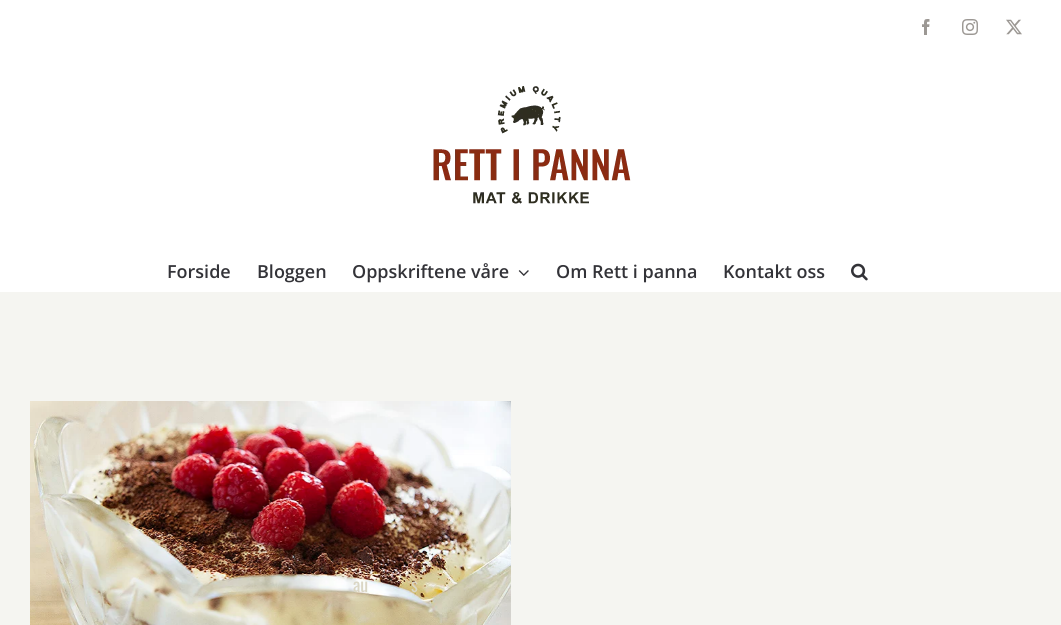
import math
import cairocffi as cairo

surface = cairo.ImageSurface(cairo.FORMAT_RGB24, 1061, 625)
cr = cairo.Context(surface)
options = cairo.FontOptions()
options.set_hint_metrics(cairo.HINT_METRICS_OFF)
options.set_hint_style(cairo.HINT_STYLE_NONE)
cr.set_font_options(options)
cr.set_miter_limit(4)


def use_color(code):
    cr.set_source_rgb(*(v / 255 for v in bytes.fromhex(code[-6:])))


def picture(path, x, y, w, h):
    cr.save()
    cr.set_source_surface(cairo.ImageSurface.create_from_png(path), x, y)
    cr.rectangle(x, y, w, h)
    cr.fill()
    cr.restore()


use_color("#f5f5f1")
cr.paint()
use_color("#ffffff")
cr.rectangle(0, 0, 1061, 55)
cr.fill()
picture("img1.png", 922, 19, 8, 16)
picture("img2.png", 962, 19, 16, 16)
picture("img3.png", 1006, 19, 16, 16)
cr.rectangle(0, 55, 1061, 237)
cr.fill()
picture("img4.png", 433, 86, 198, 118)
cr.select_font_face("Open Sans SemiBold")
cr.set_font_size(18)
use_color("#333338")
cr.move_to(167, 278)
cr.show_text("Forside")
cr.move_to(257, 278)
cr.show_text("Bloggen")
cr.move_to(352, 278)
cr.show_text("Oppskriftene våre")
picture("img5.png", 518, 270, 11, 6)
cr.move_to(556, 278)
cr.show_text("Om Rett i panna")
cr.move_to(723, 278)
cr.show_text("Kontakt oss")
picture("img6.png", 851, 263, 17, 18)
picture("img7.png", 30, 401, 481, 224)
cr.select_font_face("Oswald")
use_color("#dad6c4")
cr.move_to(353, 592)
cr.show_text("au")
cr.move_to(411, 592)
cr.show_text("s")
surface.write_to_png("result.png")
